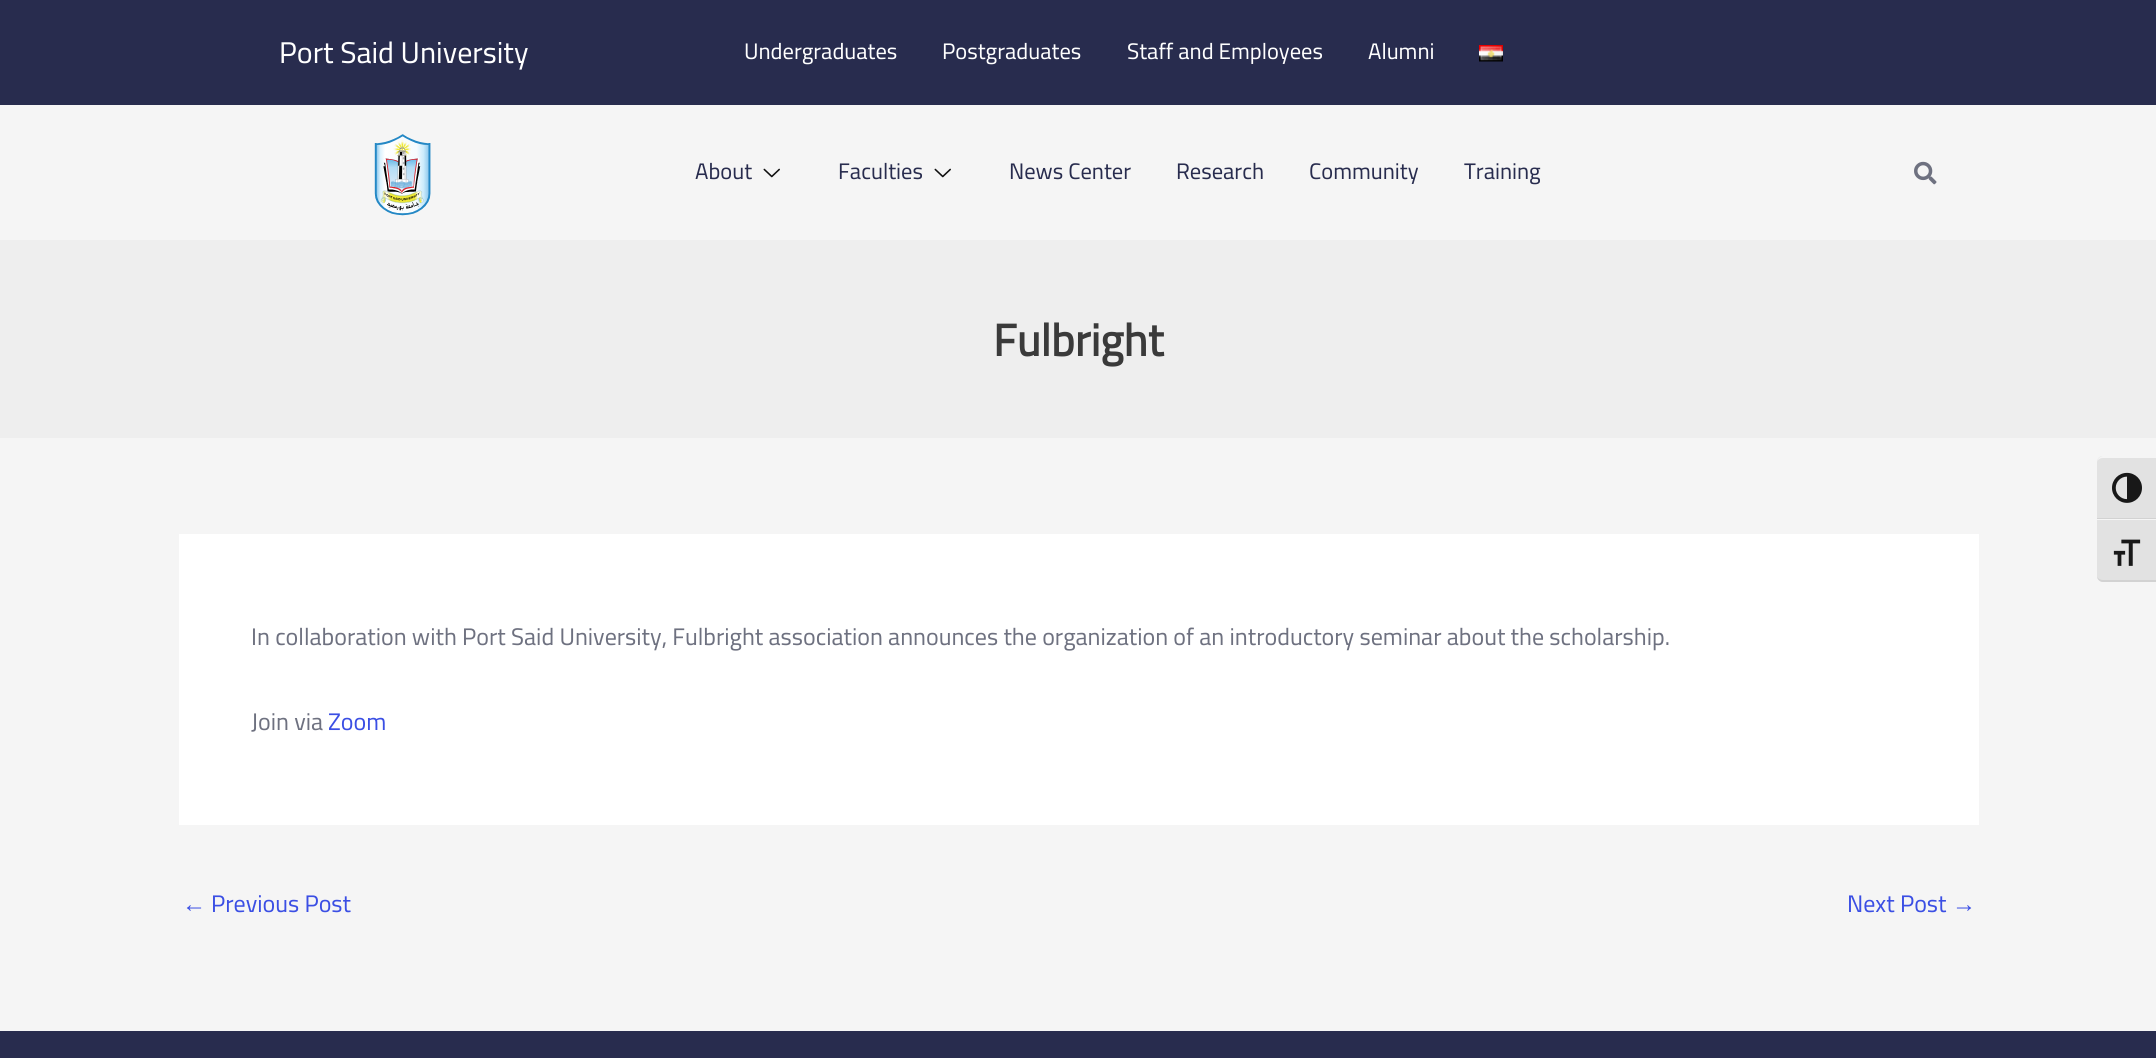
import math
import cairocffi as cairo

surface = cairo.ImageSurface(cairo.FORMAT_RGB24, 2156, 1058)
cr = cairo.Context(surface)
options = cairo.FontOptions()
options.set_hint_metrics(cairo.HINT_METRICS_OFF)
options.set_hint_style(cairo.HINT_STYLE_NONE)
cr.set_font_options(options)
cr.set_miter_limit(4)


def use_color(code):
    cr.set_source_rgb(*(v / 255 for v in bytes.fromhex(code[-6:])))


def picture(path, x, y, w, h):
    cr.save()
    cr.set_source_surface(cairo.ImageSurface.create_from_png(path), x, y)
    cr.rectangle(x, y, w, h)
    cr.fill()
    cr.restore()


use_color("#f5f5f5")
cr.paint()
use_color("#282c4e")
cr.rectangle(0, 0, 2156, 105)
cr.fill()
cr.select_font_face("Cairo")
cr.set_font_size(30)
use_color("#ffffff")
cr.move_to(279, 63)
cr.show_text("Port Said University")
cr.set_font_size(22.5)
cr.move_to(744, 59)
cr.show_text("Undergraduates")
cr.move_to(942, 59)
cr.show_text("Postgraduates")
cr.move_to(1127, 59)
cr.show_text("Staff and Employees")
cr.move_to(1368, 59)
cr.show_text("Alumni")
picture("img1.png", 1479, 45, 24, 17)
picture("img2.png", 374, 134, 57, 82)
use_color("#282c4e")
cr.move_to(695, 179)
cr.show_text("About")
picture("img3.png", 763, 168, 17, 10)
cr.move_to(838, 179)
cr.show_text("Faculties")
picture("img3.png", 934, 168, 17, 10)
cr.move_to(1009, 179)
cr.show_text("News Center")
cr.move_to(1176, 179)
cr.show_text("Research")
cr.move_to(1309, 179)
cr.show_text("Community")
cr.move_to(1464, 179)
cr.show_text("Training")
picture("img4.png", 1914, 161, 23, 24)
use_color("#eeeeee")
cr.rectangle(0, 240, 2156, 198)
cr.fill()
cr.select_font_face("Cairo", cairo.FONT_SLANT_NORMAL, cairo.FONT_WEIGHT_BOLD)
cr.set_font_size(45)
use_color("#3a3a3a")
cr.move_to(993, 356)
cr.show_text("Fulbright")
use_color("#ffffff")
cr.rectangle(179, 534, 1800, 291)
cr.fill()
cr.select_font_face("Cairo")
cr.set_font_size(24)
use_color("#6e7180")
cr.move_to(251, 645)
cr.show_text("In collaboration with Port Said University, Fulbright association announces the organization of an introductory seminar about the scholarship.")
cr.move_to(251, 730)
cr.show_text("Join via")
use_color("#3b4fe4")
cr.move_to(328, 730)
cr.show_text("Zoom")
cr.select_font_face("Liberation Sans")
cr.move_to(182, 912)
cr.show_text("←")
cr.select_font_face("Cairo")
cr.move_to(211, 912)
cr.show_text("Previous Post")
cr.move_to(1847, 912)
cr.show_text("Next Post")
cr.select_font_face("Liberation Sans")
cr.move_to(1952, 912)
cr.show_text("→")
use_color("#282c4e")
cr.rectangle(0, 1031, 2156, 27)
cr.fill()
use_color("#e2e2e2")
cr.new_path()
cr.move_to(2103, 456)
cr.line_to(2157, 456)
cr.line_to(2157, 519)
cr.line_to(2097, 519)
cr.line_to(2097, 462)
cr.curve_to(2097, 458.5, 2099.5, 456, 2103, 456)
cr.close_path()
cr.fill()
use_color("#f5f5f5")
cr.new_path()
cr.move_to(2103, 458)
cr.line_to(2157, 458)
cr.line_to(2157, 456)
cr.line_to(2103, 456)
cr.curve_to(2100, 456, 2097, 459, 2097, 462)
cr.curve_to(2097, 460, 2100, 458, 2103, 458)
cr.close_path()
cr.fill()
use_color("#d2d2d2")
cr.rectangle(2097, 518, 59, 1)
cr.fill()
picture("img5.png", 2112, 472, 30, 31)
use_color("#e2e2e2")
cr.new_path()
cr.move_to(2097, 519)
cr.line_to(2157, 519)
cr.line_to(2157, 582)
cr.line_to(2103, 582)
cr.curve_to(2099.5, 582, 2097, 579.5, 2097, 576)
cr.close_path()
cr.fill()
use_color("#f5f5f5")
cr.rectangle(2097, 519, 59, 1)
cr.fill()
use_color("#d2d2d2")
cr.new_path()
cr.move_to(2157, 582)
cr.line_to(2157, 580)
cr.line_to(2103, 580)
cr.curve_to(2100, 580, 2097, 578, 2097, 576)
cr.curve_to(2097, 579, 2100, 582, 2103, 582)
cr.close_path()
cr.fill()
picture("img6.png", 2113, 539, 28, 27)
surface.write_to_png("result.png")
